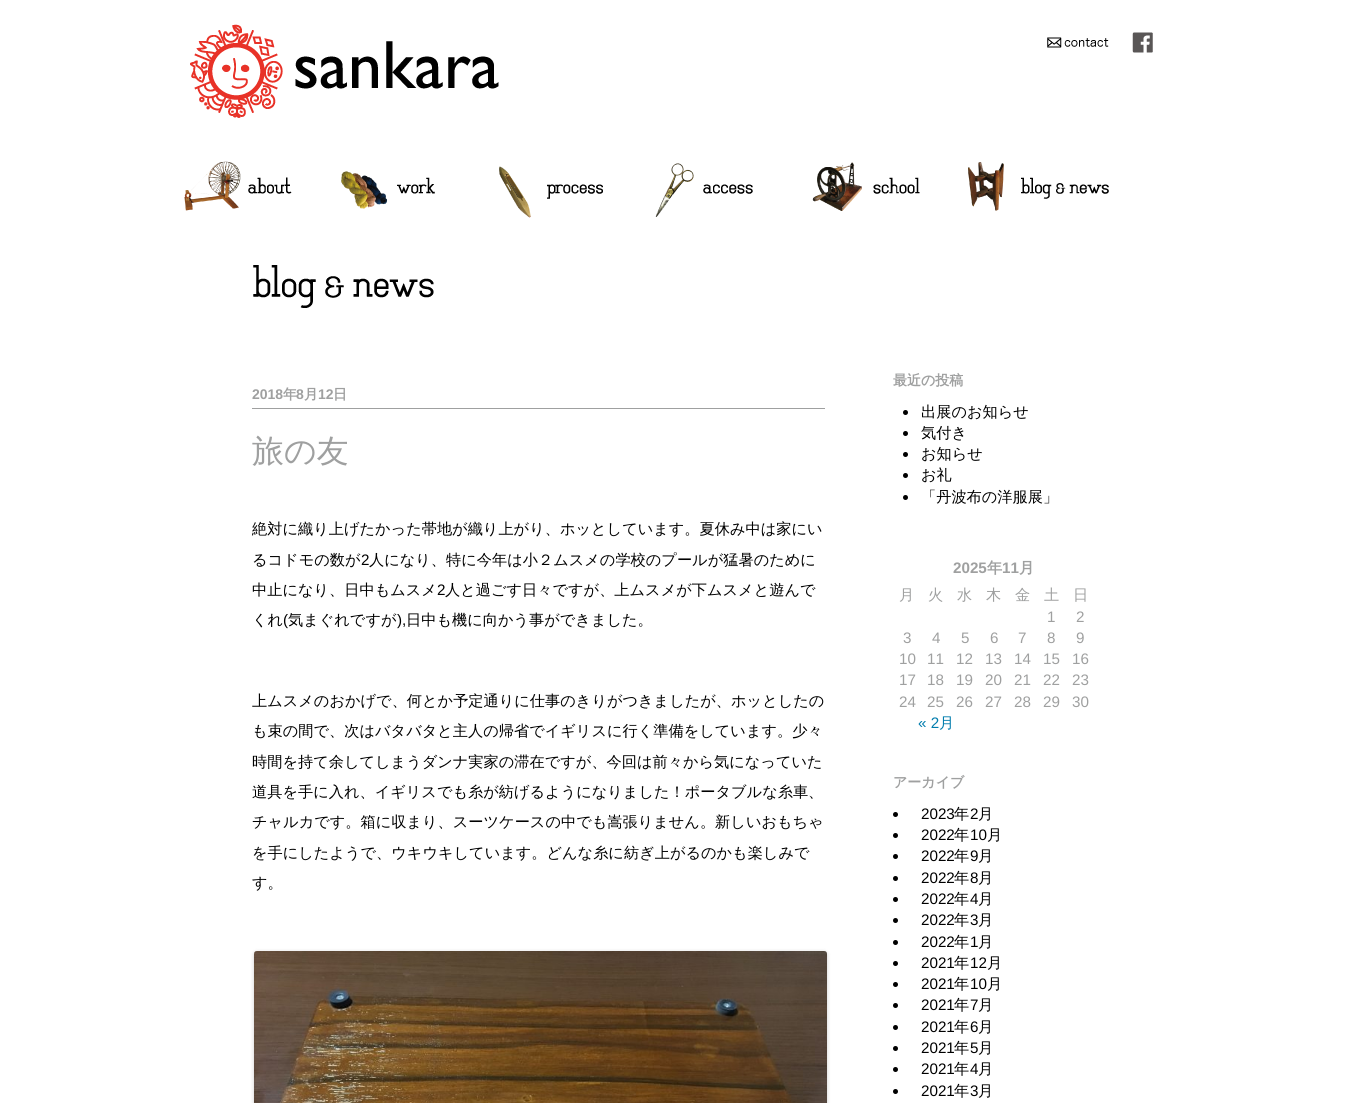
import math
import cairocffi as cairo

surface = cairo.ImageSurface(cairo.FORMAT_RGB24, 1347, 1103)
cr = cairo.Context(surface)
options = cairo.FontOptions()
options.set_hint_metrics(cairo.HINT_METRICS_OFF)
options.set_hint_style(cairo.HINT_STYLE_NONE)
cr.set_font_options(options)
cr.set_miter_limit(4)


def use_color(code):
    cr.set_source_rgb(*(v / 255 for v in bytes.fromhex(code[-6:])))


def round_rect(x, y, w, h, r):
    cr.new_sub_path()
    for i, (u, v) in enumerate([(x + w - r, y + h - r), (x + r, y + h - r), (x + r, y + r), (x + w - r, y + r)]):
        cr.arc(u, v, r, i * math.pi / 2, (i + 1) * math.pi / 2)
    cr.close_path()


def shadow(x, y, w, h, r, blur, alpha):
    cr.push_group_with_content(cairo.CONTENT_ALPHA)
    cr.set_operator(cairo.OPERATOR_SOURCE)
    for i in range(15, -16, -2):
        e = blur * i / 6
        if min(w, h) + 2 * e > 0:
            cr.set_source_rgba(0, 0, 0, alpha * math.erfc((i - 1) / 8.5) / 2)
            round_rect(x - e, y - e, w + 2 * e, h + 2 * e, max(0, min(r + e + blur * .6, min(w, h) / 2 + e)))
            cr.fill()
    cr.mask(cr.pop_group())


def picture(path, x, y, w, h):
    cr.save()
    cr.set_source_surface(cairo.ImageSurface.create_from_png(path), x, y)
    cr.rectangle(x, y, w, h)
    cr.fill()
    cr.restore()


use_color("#ffffff")
cr.paint()
picture("img1.png", 190, 24, 309, 94)
picture("img2.png", 1047, 37, 62, 11)
picture("img3.png", 1132, 32, 21, 21)
picture("img4.png", 184, 161, 108, 50)
picture("img5.png", 341, 171, 94, 38)
picture("img6.png", 499, 166, 104, 52)
picture("img7.png", 655, 163, 98, 54)
picture("img8.png", 812, 162, 108, 49)
picture("img9.png", 968, 162, 141, 49)
picture("img10.png", 253, 265, 181, 43)
use_color("#9fa0a0")
cr.rectangle(252, 408, 573, 1)
cr.fill()
cr.select_font_face("Liberation Sans", cairo.FONT_SLANT_NORMAL, cairo.FONT_WEIGHT_BOLD)
cr.set_font_size(14)
cr.move_to(252, 399)
cr.show_text("2018")
cr.select_font_face("WenQuanYi Zen Hei", cairo.FONT_SLANT_NORMAL, cairo.FONT_WEIGHT_BOLD)
cr.move_to(283, 399)
cr.show_text("年")
cr.select_font_face("Liberation Sans", cairo.FONT_SLANT_NORMAL, cairo.FONT_WEIGHT_BOLD)
cr.move_to(296, 399)
cr.show_text("8")
cr.select_font_face("WenQuanYi Zen Hei", cairo.FONT_SLANT_NORMAL, cairo.FONT_WEIGHT_BOLD)
cr.move_to(304, 399)
cr.show_text("月")
cr.select_font_face("Liberation Sans", cairo.FONT_SLANT_NORMAL, cairo.FONT_WEIGHT_BOLD)
cr.move_to(318, 399)
cr.show_text("12")
cr.select_font_face("WenQuanYi Zen Hei", cairo.FONT_SLANT_NORMAL, cairo.FONT_WEIGHT_BOLD)
cr.move_to(333, 399)
cr.show_text("日")
cr.select_font_face("WenQuanYi Zen Hei Medium")
cr.set_font_size(32)
cr.move_to(252, 462)
cr.show_text("旅の友")
cr.set_font_size(15.2)
use_color("#000000")
cr.move_to(252, 534)
cr.show_text("絶対に織り上げたかった帯地が織り上がり、ホッとしています。夏休み中は家にい")
cr.move_to(252, 565)
cr.show_text("るコドモの数が")
cr.select_font_face("Liberation Sans")
cr.move_to(361, 565)
cr.show_text("2")
cr.select_font_face("WenQuanYi Zen Hei Medium")
cr.move_to(369, 565)
cr.show_text("人になり、特に今年は小２ムスメの学校のプールが猛暑のために")
cr.move_to(252, 595)
cr.show_text("中止になり、日中もムスメ")
cr.select_font_face("Liberation Sans")
cr.move_to(437, 595)
cr.show_text("2")
cr.select_font_face("WenQuanYi Zen Hei Medium")
cr.move_to(445, 595)
cr.show_text("人と過ごす日々ですが、上ムスメが下ムスメと遊んで")
cr.move_to(252, 625)
cr.show_text("くれ")
cr.select_font_face("Liberation Sans")
cr.move_to(283, 625)
cr.show_text("(")
cr.select_font_face("WenQuanYi Zen Hei Medium")
cr.move_to(288, 625)
cr.show_text("気まぐれですが")
cr.select_font_face("Liberation Sans")
cr.move_to(397, 625)
cr.show_text("),")
cr.select_font_face("WenQuanYi Zen Hei Medium")
cr.move_to(406, 625)
cr.show_text("日中も機に向かう事ができました。")
cr.move_to(252, 706)
cr.show_text("上ムスメのおかげで、何とか予定通りに仕事のきりがつきましたが、ホッとしたの")
cr.move_to(252, 736)
cr.show_text("も束の間で、次はバタバタと主人の帰省でイギリスに行く準備をしています。少々")
cr.move_to(252, 767)
cr.show_text("時間を持て余してしまうダンナ実家の滞在ですが、今回は前々から気になっていた")
cr.move_to(252, 797)
cr.show_text("道具を手に入れ、イギリスでも糸が紡げるようになりました！ポータブルな糸車、")
cr.move_to(252, 827)
cr.show_text("チャルカです。箱に収まり、スーツケースの中でも嵩張りません。新しいおもちゃ")
cr.move_to(252, 858)
cr.show_text("を手にしたようで、ウキウキしています。どんな糸に紡ぎ上がるのかも楽しみで")
cr.move_to(252, 888)
cr.show_text("す。")
use_color("#000000")
shadow(254, 952, 573, 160, 3, 2, 0.2)
picture("img11.png", 254, 951, 573, 152)
cr.select_font_face("WenQuanYi Zen Hei", cairo.FONT_SLANT_NORMAL, cairo.FONT_WEIGHT_BOLD)
cr.set_font_size(14)
use_color("#9fa0a0")
cr.move_to(893, 385)
cr.show_text("最近の投稿")
use_color("#000000")
cr.new_path()
cr.arc(905.5, 412.5, 2.5, 0, 2 * math.pi)
cr.fill()
cr.select_font_face("WenQuanYi Zen Hei Medium")
cr.set_font_size(15.2)
cr.move_to(921, 417)
cr.show_text("出展のお知らせ")
cr.new_path()
cr.arc(905.5, 433.5, 2.5, 0, 2 * math.pi)
cr.fill()
cr.move_to(921, 438)
cr.show_text("気付き")
cr.new_path()
cr.arc(905.5, 454.5, 2.5, 0, 2 * math.pi)
cr.fill()
cr.move_to(921, 459)
cr.show_text("お知らせ")
cr.new_path()
cr.arc(905.5, 475.5, 2.5, 0, 2 * math.pi)
cr.fill()
cr.move_to(921, 480)
cr.show_text("お礼")
cr.new_path()
cr.arc(905.5, 497.5, 2.5, 0, 2 * math.pi)
cr.fill()
cr.move_to(921, 502)
cr.show_text("「丹波布の洋服展」")
cr.select_font_face("Liberation Sans", cairo.FONT_SLANT_NORMAL, cairo.FONT_WEIGHT_BOLD)
use_color("#9fa0a0")
cr.move_to(953, 573)
cr.show_text("2025")
cr.select_font_face("WenQuanYi Zen Hei", cairo.FONT_SLANT_NORMAL, cairo.FONT_WEIGHT_BOLD)
cr.move_to(987, 573)
cr.show_text("年")
cr.select_font_face("Liberation Sans", cairo.FONT_SLANT_NORMAL, cairo.FONT_WEIGHT_BOLD)
cr.move_to(1002, 573)
cr.show_text("11")
cr.select_font_face("WenQuanYi Zen Hei", cairo.FONT_SLANT_NORMAL, cairo.FONT_WEIGHT_BOLD)
cr.move_to(1019, 573)
cr.show_text("月")
cr.select_font_face("WenQuanYi Zen Hei Medium")
cr.move_to(899, 600)
cr.show_text("月")
cr.move_to(928, 600)
cr.show_text("火")
cr.move_to(957, 600)
cr.show_text("水")
cr.move_to(986, 600)
cr.show_text("木")
cr.move_to(1015, 600)
cr.show_text("金")
cr.move_to(1044, 600)
cr.show_text("土")
cr.move_to(1073, 600)
cr.show_text("日")
cr.select_font_face("Liberation Sans")
cr.move_to(1047, 622)
cr.show_text("1")
cr.move_to(1076, 622)
cr.show_text("2")
cr.move_to(903, 643)
cr.show_text("3")
cr.move_to(932, 643)
cr.show_text("4")
cr.move_to(961, 643)
cr.show_text("5")
cr.move_to(990, 643)
cr.show_text("6")
cr.move_to(1018, 643)
cr.show_text("7")
cr.move_to(1047, 643)
cr.show_text("8")
cr.move_to(1076, 643)
cr.show_text("9")
cr.move_to(899, 664)
cr.show_text("10")
cr.move_to(927, 664)
cr.show_text("11")
cr.move_to(956, 664)
cr.show_text("12")
cr.move_to(985, 664)
cr.show_text("13")
cr.move_to(1014, 664)
cr.show_text("14")
cr.move_to(1043, 664)
cr.show_text("15")
cr.move_to(1072, 664)
cr.show_text("16")
cr.move_to(899, 685)
cr.show_text("17")
cr.move_to(927, 685)
cr.show_text("18")
cr.move_to(956, 685)
cr.show_text("19")
cr.move_to(985, 685)
cr.show_text("20")
cr.move_to(1014, 685)
cr.show_text("21")
cr.move_to(1043, 685)
cr.show_text("22")
cr.move_to(1072, 685)
cr.show_text("23")
cr.move_to(899, 707)
cr.show_text("24")
cr.move_to(927, 707)
cr.show_text("25")
cr.move_to(956, 707)
cr.show_text("26")
cr.move_to(985, 707)
cr.show_text("27")
cr.move_to(1014, 707)
cr.show_text("28")
cr.move_to(1043, 707)
cr.show_text("29")
cr.move_to(1072, 707)
cr.show_text("30")
use_color("#007cad")
cr.move_to(918, 728)
cr.show_text("« 2")
cr.select_font_face("WenQuanYi Zen Hei Medium")
cr.move_to(939, 728)
cr.show_text("月")
cr.select_font_face("WenQuanYi Zen Hei", cairo.FONT_SLANT_NORMAL, cairo.FONT_WEIGHT_BOLD)
cr.set_font_size(14)
use_color("#9fa0a0")
cr.move_to(893, 787)
cr.show_text("アーカイブ")
use_color("#000000")
cr.new_path()
cr.arc(895.5, 814.5, 2.5, 0, 2 * math.pi)
cr.fill()
cr.select_font_face("Liberation Sans")
cr.set_font_size(15.2)
cr.move_to(921, 819)
cr.show_text("2023")
cr.select_font_face("WenQuanYi Zen Hei Medium")
cr.move_to(954, 819)
cr.show_text("年")
cr.select_font_face("Liberation Sans")
cr.move_to(970, 819)
cr.show_text("2")
cr.select_font_face("WenQuanYi Zen Hei Medium")
cr.move_to(978, 819)
cr.show_text("月")
cr.new_path()
cr.arc(895.5, 835.5, 2.5, 0, 2 * math.pi)
cr.fill()
cr.select_font_face("Liberation Sans")
cr.move_to(921, 840)
cr.show_text("2022")
cr.select_font_face("WenQuanYi Zen Hei Medium")
cr.move_to(954, 840)
cr.show_text("年")
cr.select_font_face("Liberation Sans")
cr.move_to(970, 840)
cr.show_text("10")
cr.select_font_face("WenQuanYi Zen Hei Medium")
cr.move_to(987, 840)
cr.show_text("月")
cr.new_path()
cr.arc(895.5, 856.5, 2.5, 0, 2 * math.pi)
cr.fill()
cr.select_font_face("Liberation Sans")
cr.move_to(921, 861)
cr.show_text("2022")
cr.select_font_face("WenQuanYi Zen Hei Medium")
cr.move_to(954, 861)
cr.show_text("年")
cr.select_font_face("Liberation Sans")
cr.move_to(970, 861)
cr.show_text("9")
cr.select_font_face("WenQuanYi Zen Hei Medium")
cr.move_to(978, 861)
cr.show_text("月")
cr.new_path()
cr.arc(895.5, 878.5, 2.5, 0, 2 * math.pi)
cr.fill()
cr.select_font_face("Liberation Sans")
cr.move_to(921, 883)
cr.show_text("2022")
cr.select_font_face("WenQuanYi Zen Hei Medium")
cr.move_to(954, 883)
cr.show_text("年")
cr.select_font_face("Liberation Sans")
cr.move_to(970, 883)
cr.show_text("8")
cr.select_font_face("WenQuanYi Zen Hei Medium")
cr.move_to(978, 883)
cr.show_text("月")
cr.new_path()
cr.arc(895.5, 899.5, 2.5, 0, 2 * math.pi)
cr.fill()
cr.select_font_face("Liberation Sans")
cr.move_to(921, 904)
cr.show_text("2022")
cr.select_font_face("WenQuanYi Zen Hei Medium")
cr.move_to(954, 904)
cr.show_text("年")
cr.select_font_face("Liberation Sans")
cr.move_to(970, 904)
cr.show_text("4")
cr.select_font_face("WenQuanYi Zen Hei Medium")
cr.move_to(978, 904)
cr.show_text("月")
cr.new_path()
cr.arc(895.5, 920.5, 2.5, 0, 2 * math.pi)
cr.fill()
cr.select_font_face("Liberation Sans")
cr.move_to(921, 925)
cr.show_text("2022")
cr.select_font_face("WenQuanYi Zen Hei Medium")
cr.move_to(954, 925)
cr.show_text("年")
cr.select_font_face("Liberation Sans")
cr.move_to(970, 925)
cr.show_text("3")
cr.select_font_face("WenQuanYi Zen Hei Medium")
cr.move_to(978, 925)
cr.show_text("月")
cr.new_path()
cr.arc(895.5, 942.5, 2.5, 0, 2 * math.pi)
cr.fill()
cr.select_font_face("Liberation Sans")
cr.move_to(921, 947)
cr.show_text("2022")
cr.select_font_face("WenQuanYi Zen Hei Medium")
cr.move_to(954, 947)
cr.show_text("年")
cr.select_font_face("Liberation Sans")
cr.move_to(970, 947)
cr.show_text("1")
cr.select_font_face("WenQuanYi Zen Hei Medium")
cr.move_to(978, 947)
cr.show_text("月")
cr.new_path()
cr.arc(895.5, 963.5, 2.5, 0, 2 * math.pi)
cr.fill()
cr.select_font_face("Liberation Sans")
cr.move_to(921, 968)
cr.show_text("2021")
cr.select_font_face("WenQuanYi Zen Hei Medium")
cr.move_to(954, 968)
cr.show_text("年")
cr.select_font_face("Liberation Sans")
cr.move_to(970, 968)
cr.show_text("12")
cr.select_font_face("WenQuanYi Zen Hei Medium")
cr.move_to(987, 968)
cr.show_text("月")
cr.new_path()
cr.arc(895.5, 984.5, 2.5, 0, 2 * math.pi)
cr.fill()
cr.select_font_face("Liberation Sans")
cr.move_to(921, 989)
cr.show_text("2021")
cr.select_font_face("WenQuanYi Zen Hei Medium")
cr.move_to(954, 989)
cr.show_text("年")
cr.select_font_face("Liberation Sans")
cr.move_to(970, 989)
cr.show_text("10")
cr.select_font_face("WenQuanYi Zen Hei Medium")
cr.move_to(987, 989)
cr.show_text("月")
cr.new_path()
cr.arc(895.5, 1005.5, 2.5, 0, 2 * math.pi)
cr.fill()
cr.select_font_face("Liberation Sans")
cr.move_to(921, 1010)
cr.show_text("2021")
cr.select_font_face("WenQuanYi Zen Hei Medium")
cr.move_to(954, 1010)
cr.show_text("年")
cr.select_font_face("Liberation Sans")
cr.move_to(970, 1010)
cr.show_text("7")
cr.select_font_face("WenQuanYi Zen Hei Medium")
cr.move_to(978, 1010)
cr.show_text("月")
cr.new_path()
cr.arc(895.5, 1027.5, 2.5, 0, 2 * math.pi)
cr.fill()
cr.select_font_face("Liberation Sans")
cr.move_to(921, 1032)
cr.show_text("2021")
cr.select_font_face("WenQuanYi Zen Hei Medium")
cr.move_to(954, 1032)
cr.show_text("年")
cr.select_font_face("Liberation Sans")
cr.move_to(970, 1032)
cr.show_text("6")
cr.select_font_face("WenQuanYi Zen Hei Medium")
cr.move_to(978, 1032)
cr.show_text("月")
cr.new_path()
cr.arc(895.5, 1048.5, 2.5, 0, 2 * math.pi)
cr.fill()
cr.select_font_face("Liberation Sans")
cr.move_to(921, 1053)
cr.show_text("2021")
cr.select_font_face("WenQuanYi Zen Hei Medium")
cr.move_to(954, 1053)
cr.show_text("年")
cr.select_font_face("Liberation Sans")
cr.move_to(970, 1053)
cr.show_text("5")
cr.select_font_face("WenQuanYi Zen Hei Medium")
cr.move_to(978, 1053)
cr.show_text("月")
cr.new_path()
cr.arc(895.5, 1069.5, 2.5, 0, 2 * math.pi)
cr.fill()
cr.select_font_face("Liberation Sans")
cr.move_to(921, 1074)
cr.show_text("2021")
cr.select_font_face("WenQuanYi Zen Hei Medium")
cr.move_to(954, 1074)
cr.show_text("年")
cr.select_font_face("Liberation Sans")
cr.move_to(970, 1074)
cr.show_text("4")
cr.select_font_face("WenQuanYi Zen Hei Medium")
cr.move_to(978, 1074)
cr.show_text("月")
cr.new_path()
cr.arc(895.5, 1091.5, 2.5, 0, 2 * math.pi)
cr.fill()
cr.select_font_face("Liberation Sans")
cr.move_to(921, 1096)
cr.show_text("2021")
cr.select_font_face("WenQuanYi Zen Hei Medium")
cr.move_to(954, 1096)
cr.show_text("年")
cr.select_font_face("Liberation Sans")
cr.move_to(970, 1096)
cr.show_text("3")
cr.select_font_face("WenQuanYi Zen Hei Medium")
cr.move_to(978, 1096)
cr.show_text("月")
surface.write_to_png("result.png")
